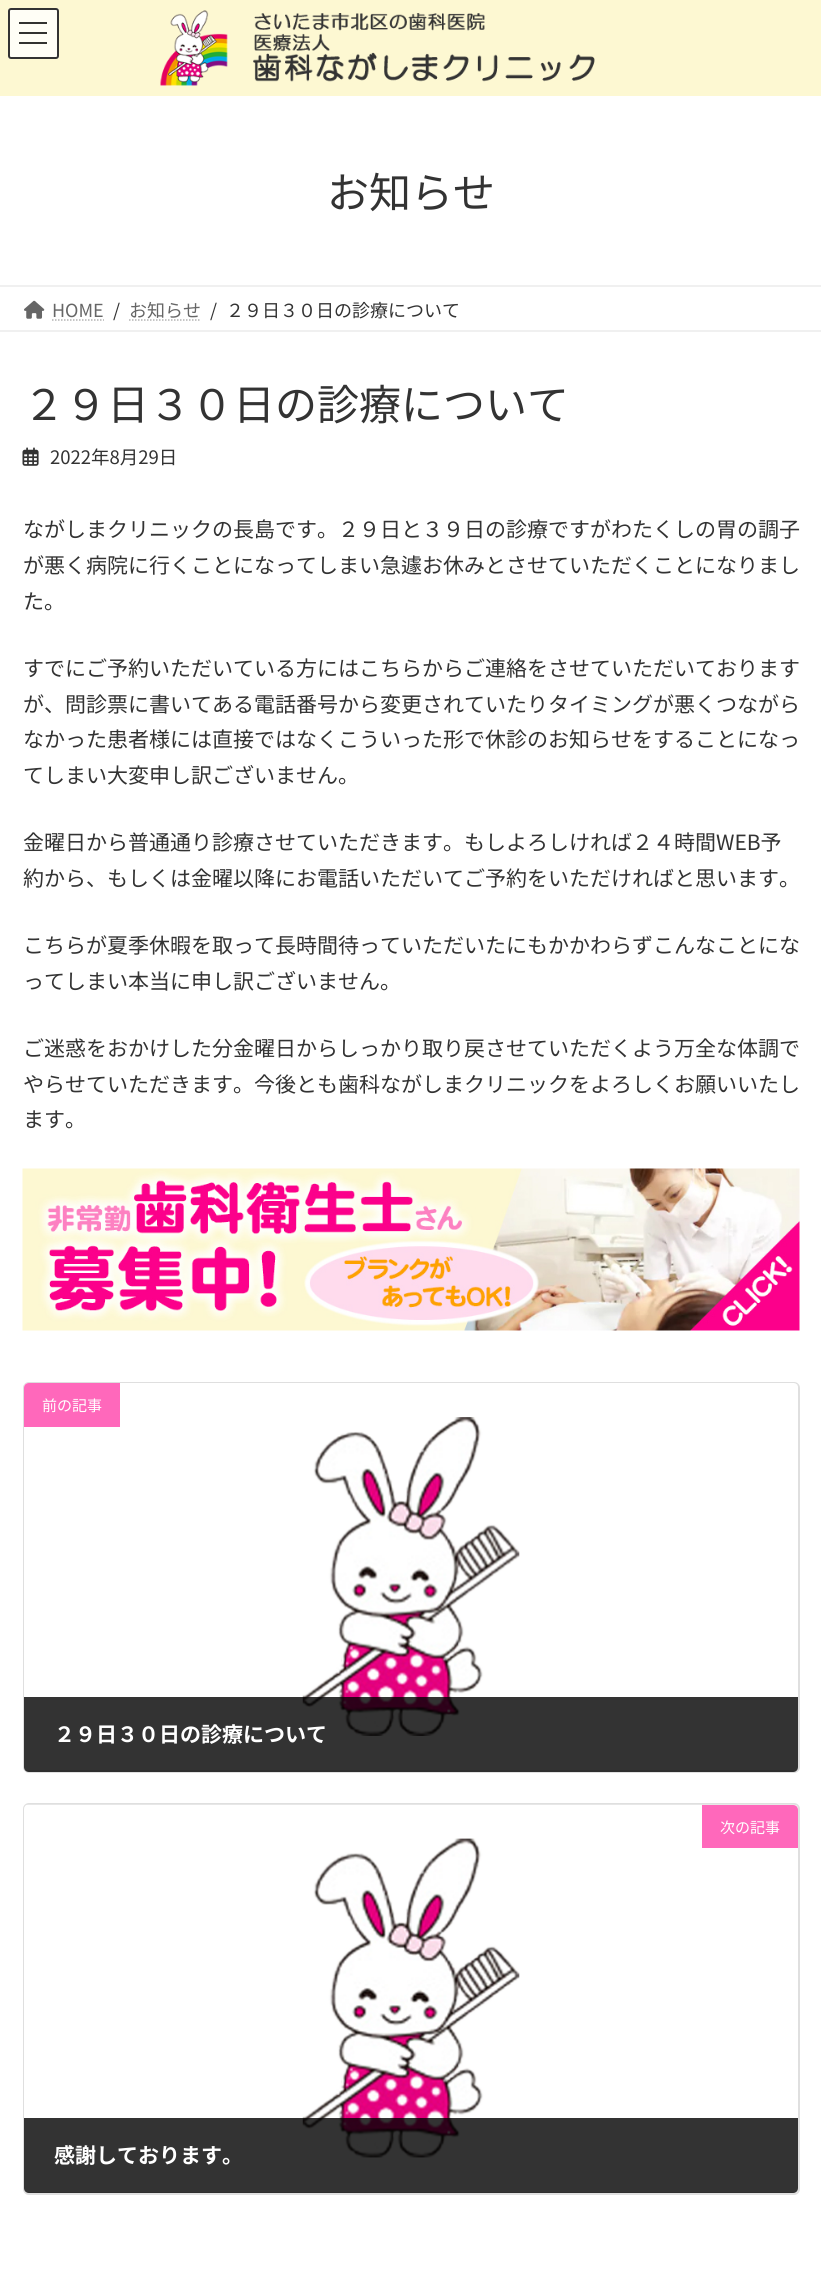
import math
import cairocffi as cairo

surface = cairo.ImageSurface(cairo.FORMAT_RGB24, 821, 2282)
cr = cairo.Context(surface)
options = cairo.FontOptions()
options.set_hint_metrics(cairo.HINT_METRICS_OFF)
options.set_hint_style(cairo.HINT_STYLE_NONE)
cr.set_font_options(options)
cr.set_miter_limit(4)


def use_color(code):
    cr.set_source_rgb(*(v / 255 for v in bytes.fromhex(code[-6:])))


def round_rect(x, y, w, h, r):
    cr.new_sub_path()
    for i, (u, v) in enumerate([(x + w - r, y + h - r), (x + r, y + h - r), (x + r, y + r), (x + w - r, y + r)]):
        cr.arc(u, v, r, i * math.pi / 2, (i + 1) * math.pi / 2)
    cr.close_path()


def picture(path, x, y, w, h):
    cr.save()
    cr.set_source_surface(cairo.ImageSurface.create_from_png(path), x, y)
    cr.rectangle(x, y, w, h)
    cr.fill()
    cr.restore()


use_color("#ffffff")
cr.paint()
use_color("#fdf8d2")
cr.rectangle(0, 0, 821, 96)
cr.fill()
picture("img1.png", 160, 10, 435, 76)
use_color("#fffef6")
round_rect(8, 8, 51, 51, 3)
cr.fill()
use_color("#333331")
cr.rectangle(19, 22, 28, 2)
cr.fill()
cr.rectangle(19, 32, 28, 2)
cr.fill()
cr.rectangle(19, 42, 28, 2)
cr.fill()
round_rect(9, 9, 49, 49, 2)
use_color("#333333")
cr.stroke()
cr.select_font_face("Noto Sans JP")
cr.set_font_size(42)
cr.move_to(327, 208)
cr.show_text("お知らせ")
use_color("#f0f0f0")
cr.rectangle(0, 285, 821, 2)
cr.fill()
cr.rectangle(0, 330, 821, 2)
cr.fill()
picture("img2.png", 24, 300, 21, 19)
cr.set_font_size(18)
use_color("#666666")
cr.move_to(52, 317)
cr.show_text("HOME")
cr.new_path()
cr.move_to(52, 320)
cr.line_to(104, 320)
use_color("#b3b3b3")
cr.set_line_width(1.5)
cr.set_dash([1.5, 1.5])
cr.stroke()
use_color("#333333")
cr.move_to(113, 317)
cr.show_text("/")
use_color("#666666")
cr.move_to(129, 317)
cr.show_text("お知らせ")
cr.new_path()
cr.move_to(129, 320)
cr.line_to(201, 320)
use_color("#b3b3b3")
cr.stroke()
use_color("#333333")
cr.move_to(210, 317)
cr.show_text("/")
cr.move_to(226, 317)
cr.show_text("２９日３０日の診療について")
cr.set_font_size(42)
cr.move_to(23, 420)
cr.show_text("２９日３０日の診療について")
picture("img3.png", 22, 447, 17, 19)
cr.set_font_size(18.5)
cr.move_to(50, 464)
cr.show_text("2022年8月29日")
cr.set_font_size(21)
cr.move_to(23, 537)
cr.show_text("ながしまクリニックの長島です。２９日と３９日の診療ですがわたくしの胃の調子")
cr.move_to(23, 573)
cr.show_text("が悪く病院に行くことになってしまい急遽お休みとさせていただくことになりまし")
cr.move_to(23, 609)
cr.show_text("た。")
cr.move_to(23, 676)
cr.show_text("すでにご予約いただいている方にはこちらからご連絡をさせていただいております")
cr.move_to(23, 712)
cr.show_text("が、問診票に書いてある電話番号から変更されていたりタイミングが悪くつながら")
cr.move_to(23, 747)
cr.show_text("なかった患者様には直接ではなくこういった形で休診のお知らせをすることになっ")
cr.move_to(23, 783)
cr.show_text("てしまい大変申し訳ございません。")
cr.move_to(23, 850)
cr.show_text("金曜日から普通通り診療させていただきます。もしよろしければ２４時間WEB予")
cr.move_to(23, 886)
cr.show_text("約から、もしくは金曜以降にお電話いただいてご予約をいただければと思います。")
cr.move_to(23, 953)
cr.show_text("こちらが夏季休暇を取って長時間待っていただいたにもかかわらずこんなことにな")
cr.move_to(23, 989)
cr.show_text("ってしまい本当に申し訳ございません。")
cr.move_to(23, 1056)
cr.show_text("ご迷惑をおかけした分金曜日からしっかり取り戻させていただくよう万全な体調で")
cr.move_to(23, 1092)
cr.show_text("やらせていただきます。今後とも歯科ながしまクリニックをよろしくお願いいたし")
cr.move_to(23, 1127)
cr.show_text("ます。")
picture("img4.png", 22, 1168, 778, 163)
round_rect(24, 1383, 775, 389, 5)
use_color("#dfdfdf")
cr.set_line_width(2)
cr.set_dash([])
cr.stroke()
picture("img5.png", 24, 1383, 774, 389)
cr.save()
round_rect(24, 1383, 774, 389, 5)
cr.clip()
use_color("#e5e5e5")
cr.rectangle(24, 1770, 774, 2)
cr.fill()
cr.restore()
use_color("#ff68bb")
cr.new_path()
cr.move_to(29, 1383)
cr.line_to(120, 1383)
cr.line_to(120, 1427)
cr.line_to(24, 1427)
cr.line_to(24, 1388)
cr.curve_to(24, 1385, 26, 1383, 29, 1383)
cr.close_path()
cr.fill()
cr.set_font_size(15)
use_color("#ffffff")
cr.move_to(42, 1411)
cr.show_text("前の記事")
cr.set_source_rgba(0, 0, 0, 0.8)
cr.new_path()
cr.move_to(24, 1697)
cr.line_to(798, 1697)
cr.line_to(798, 1767)
cr.curve_to(798, 1770, 796, 1772, 793, 1772)
cr.line_to(29, 1772)
cr.curve_to(26, 1772, 24, 1770, 24, 1767)
cr.close_path()
cr.fill()
cr.select_font_face("Noto Sans JP", cairo.FONT_SLANT_NORMAL, cairo.FONT_WEIGHT_BOLD)
cr.set_font_size(21)
use_color("#ffffff")
cr.move_to(54, 1742)
cr.show_text("２９日３０日の診療について")
round_rect(24, 1804, 775, 390, 5)
use_color("#dfdfdf")
cr.stroke()
picture("img6.png", 24, 1804, 774, 389)
cr.save()
round_rect(24, 1805, 774, 388, 5)
cr.clip()
use_color("#e5e5e5")
cr.rectangle(24, 2192, 774, 1)
cr.fill()
cr.restore()
use_color("#ff68bb")
cr.new_path()
cr.move_to(702, 1805)
cr.line_to(793, 1805)
cr.curve_to(796, 1805, 798, 1807, 798, 1810)
cr.line_to(798, 1848)
cr.line_to(702, 1848)
cr.close_path()
cr.fill()
cr.select_font_face("Noto Sans JP")
cr.set_font_size(15)
use_color("#ffffff")
cr.move_to(720, 1833)
cr.show_text("次の記事")
cr.set_source_rgba(0, 0, 0, 0.8)
cr.new_path()
cr.move_to(24, 2118)
cr.line_to(798, 2118)
cr.line_to(798, 2188)
cr.curve_to(798, 2191, 796, 2193, 793, 2193)
cr.line_to(29, 2193)
cr.curve_to(26, 2193, 24, 2191, 24, 2188)
cr.close_path()
cr.fill()
cr.select_font_face("Noto Sans JP", cairo.FONT_SLANT_NORMAL, cairo.FONT_WEIGHT_BOLD)
cr.set_font_size(21)
use_color("#ffffff")
cr.move_to(54, 2163)
cr.show_text("感謝しております。")
surface.write_to_png("result.png")
